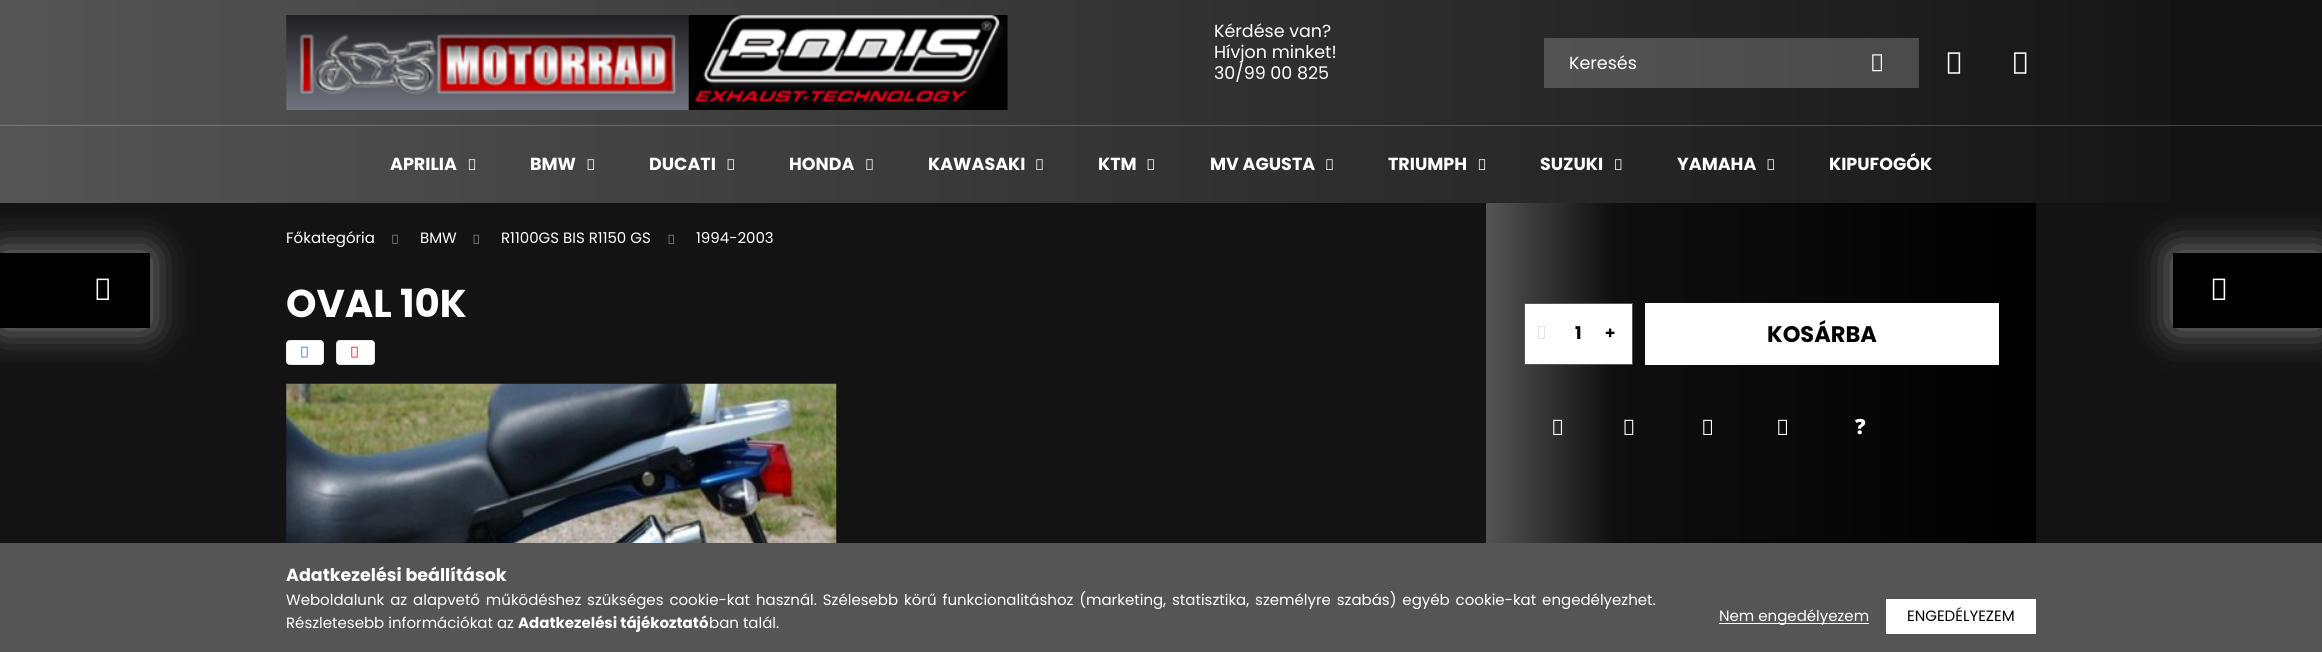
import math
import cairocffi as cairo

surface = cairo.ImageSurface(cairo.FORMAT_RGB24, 2322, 652)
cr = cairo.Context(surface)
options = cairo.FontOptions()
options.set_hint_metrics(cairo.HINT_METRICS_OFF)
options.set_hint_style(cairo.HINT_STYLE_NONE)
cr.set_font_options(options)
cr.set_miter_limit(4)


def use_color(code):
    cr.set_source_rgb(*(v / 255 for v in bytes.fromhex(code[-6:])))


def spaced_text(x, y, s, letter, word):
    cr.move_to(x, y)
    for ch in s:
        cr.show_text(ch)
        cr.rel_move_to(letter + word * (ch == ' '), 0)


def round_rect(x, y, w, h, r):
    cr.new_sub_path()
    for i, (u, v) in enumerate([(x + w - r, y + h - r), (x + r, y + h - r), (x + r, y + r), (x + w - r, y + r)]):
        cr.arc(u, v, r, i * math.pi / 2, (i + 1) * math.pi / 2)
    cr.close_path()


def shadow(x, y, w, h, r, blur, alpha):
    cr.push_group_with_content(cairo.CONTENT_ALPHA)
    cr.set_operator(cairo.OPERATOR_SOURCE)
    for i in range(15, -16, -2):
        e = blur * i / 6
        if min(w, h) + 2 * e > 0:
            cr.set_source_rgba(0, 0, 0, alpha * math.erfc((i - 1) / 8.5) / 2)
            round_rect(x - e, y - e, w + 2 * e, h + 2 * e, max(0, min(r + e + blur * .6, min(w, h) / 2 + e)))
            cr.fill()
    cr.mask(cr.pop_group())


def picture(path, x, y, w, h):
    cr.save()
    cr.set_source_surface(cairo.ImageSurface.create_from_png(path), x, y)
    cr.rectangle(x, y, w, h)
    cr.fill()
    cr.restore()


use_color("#131313")
cr.paint()
gradient = cairo.LinearGradient(0, 63, 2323, 62)
gradient.add_color_stop_rgba(0, 0.333, 0.333, 0.333, 1)
gradient.add_color_stop_rgba(1, 0.067, 0.067, 0.067, 1)
cr.set_source(gradient)
cr.rectangle(0, 0, 2169, 125)
cr.fill()
gradient = cairo.LinearGradient(0, 63, 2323, 62)
gradient.add_color_stop_rgba(0, 0.467, 0.467, 0.467, 1)
gradient.add_color_stop_rgba(1, 0.255, 0.255, 0.255, 1)
cr.set_source(gradient)
cr.rectangle(1544, 38, 375, 50)
cr.fill()
picture("img1.png", 286, 15, 722, 95)
cr.select_font_face("Poppins")
cr.set_font_size(17.5)
use_color("#ffffff")
cr.move_to(1214, 37)
cr.show_text("Kérdése van?")
cr.move_to(1214, 58)
cr.show_text("Hívjon minket!")
cr.move_to(1214, 79)
cr.show_text("30/99 00 825")
cr.move_to(1569, 69)
cr.show_text("Keresés")
picture("img2.png", 1872, 54, 10, 18)
picture("img3.png", 1947, 52, 14, 22)
picture("img4.png", 2014, 52, 13, 22)
use_color("#ffffff")
shadow(0, 253, 150, 75, 0, 19, 0.5)
shadow(2173, 253, 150, 75, 0, 19, 0.5)
gradient = cairo.LinearGradient(0, 164, 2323, 164)
gradient.add_color_stop_rgba(0, 0.333, 0.333, 0.333, 1)
gradient.add_color_stop_rgba(1, 0.067, 0.067, 0.067, 1)
cr.set_source(gradient)
cr.rectangle(0, 126, 2169, 77)
cr.fill()
gradient = cairo.LinearGradient(0, 164, 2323, 164)
gradient.add_color_stop_rgba(0, 0.467, 0.467, 0.467, 1)
gradient.add_color_stop_rgba(1, 0.255, 0.255, 0.255, 1)
cr.set_source(gradient)
cr.rectangle(0, 125, 2322, 1)
cr.fill()
cr.select_font_face("Poppins", cairo.FONT_SLANT_NORMAL, cairo.FONT_WEIGHT_BOLD)
use_color("#ffffff")
cr.move_to(390, 170)
cr.show_text("APRILIA")
picture("img5.png", 468, 159, 8, 11)
cr.move_to(530, 170)
cr.show_text("BMW")
picture("img6.png", 587, 159, 7, 11)
cr.move_to(649, 170)
cr.show_text("DUCATI")
picture("img7.png", 727, 159, 7, 11)
cr.move_to(789, 170)
cr.show_text("HONDA")
picture("img8.png", 866, 159, 7, 11)
cr.move_to(928, 170)
cr.show_text("KAWASAKI")
picture("img9.png", 1036, 159, 7, 11)
cr.move_to(1098, 170)
cr.show_text("KTM")
picture("img10.png", 1147, 159, 7, 11)
cr.move_to(1210, 170)
cr.show_text("MV AGUSTA")
picture("img11.png", 1326, 159, 7, 11)
cr.move_to(1388, 170)
cr.show_text("TRIUMPH")
picture("img12.png", 1478, 159, 8, 11)
cr.move_to(1540, 170)
cr.show_text("SUZUKI")
picture("img13.png", 1615, 159, 7, 11)
cr.move_to(1677, 170)
cr.show_text("YAMAHA")
picture("img14.png", 1767, 159, 7, 11)
cr.move_to(1829, 170)
cr.show_text("KIPUFOGÓK")
use_color("#000000")
cr.rectangle(0, 253, 150, 75)
cr.fill()
picture("img15.png", 96, 278, 13, 22)
cr.rectangle(2173, 253, 149, 75)
cr.fill()
picture("img16.png", 2212, 278, 14, 22)
cr.select_font_face("Poppins")
cr.set_font_size(15)
use_color("#ffffff")
cr.move_to(286, 243)
cr.show_text("Főkategória")
picture("img17.png", 392, 234, 6, 10)
cr.move_to(420, 243)
cr.show_text("BMW")
picture("img18.png", 473, 234, 6, 10)
cr.move_to(501, 243)
cr.show_text("R1100GS BIS R1150 GS")
picture("img18.png", 668, 234, 6, 10)
cr.move_to(696, 243)
cr.show_text("1994-2003")
cr.select_font_face("Poppins", cairo.FONT_SLANT_NORMAL, cairo.FONT_WEIGHT_BOLD)
cr.set_font_size(38.75)
cr.move_to(286, 317)
cr.show_text("OVAL 10K")
round_rect(286.5, 340.5, 37, 24, 3.5)
cr.fill_preserve()
use_color("#eaeaea")
cr.set_line_width(1)
cr.stroke()
picture("img19.png", 301, 346, 7, 12)
use_color("#ffffff")
round_rect(336.5, 340.5, 38, 24, 3.5)
cr.fill_preserve()
use_color("#eaeaea")
cr.stroke()
picture("img20.png", 351, 346, 7, 12)
picture("img21.png", 286, 383, 551, 160)
gradient = cairo.LinearGradient(1486, 638, 2036, 638)
gradient.add_color_stop_rgba(0, 0.333, 0.333, 0.333, 1)
gradient.add_color_stop_rgba(0.23, 0.059, 0.059, 0.059, 1)
gradient.add_color_stop_rgba(1, 0, 0, 0, 1)
cr.set_source(gradient)
cr.rectangle(1486, 228, 550, 315)
cr.fill()
gradient = cairo.LinearGradient(1486, 215, 2036, 215)
gradient.add_color_stop_rgba(0, 0.333, 0.333, 0.333, 1)
gradient.add_color_stop_rgba(0.23, 0.059, 0.059, 0.059, 1)
gradient.add_color_stop_rgba(1, 0, 0, 0, 1)
cr.set_source(gradient)
cr.rectangle(1486, 203, 550, 25)
cr.fill()
use_color("#ffffff")
cr.rectangle(1524.5, 303.5, 108, 61)
cr.fill_preserve()
use_color("#555555")
cr.stroke()
picture("img22.png", 1538, 326, 7, 13)
cr.set_font_size(17.5)
use_color("#000000")
cr.move_to(1575, 339)
cr.show_text("1")
cr.select_font_face("Noto Sans Black")
cr.move_to(1605, 339)
cr.show_text("+")
gradient = cairo.LinearGradient(938, 334, 1999, 334)
gradient.add_color_stop_rgba(0, 0.333, 0.333, 0.333, 1)
gradient.add_color_stop_rgba(0.33, 0.333, 0.333, 0.333, 1)
gradient.add_color_stop_rgba(0.67, 1, 1, 1, 1)
gradient.add_color_stop_rgba(1, 1, 1, 1, 1)
cr.set_source(gradient)
cr.rectangle(1645, 303, 354, 62)
cr.fill()
cr.select_font_face("Poppins", cairo.FONT_SLANT_NORMAL, cairo.FONT_WEIGHT_BOLD)
cr.set_font_size(22.5)
use_color("#000000")
cr.move_to(1767, 342)
cr.show_text("KOSÁRBA")
picture("img23.png", 1553, 419, 9, 16)
picture("img24.png", 1624, 419, 10, 16)
picture("img25.png", 1703, 419, 9, 16)
picture("img26.png", 1778, 419, 9, 16)
cr.select_font_face("Noto Sans Black")
cr.set_font_size(21)
use_color("#ffffff")
cr.move_to(1855, 434)
cr.show_text("?")
use_color("#555555")
cr.rectangle(0, 543, 2322, 109)
cr.fill()
cr.select_font_face("Poppins", cairo.FONT_SLANT_NORMAL, cairo.FONT_WEIGHT_BOLD)
cr.set_font_size(17.5)
use_color("#ffffff")
cr.move_to(286, 581)
cr.show_text("Adatkezelési beállítások")
cr.select_font_face("Poppins")
cr.set_font_size(15)
spaced_text(286, 605, "Weboldalunk az alapvető működéshez szükséges cookie-kat használ. Szélesebb körű funkcionalitáshoz (marketing, statisztika, személyre szabás) egyéb cookie-kat engedélyezhet.", 0, 1.9)
cr.move_to(286, 628)
cr.show_text("Részletesebb információkat az")
cr.select_font_face("Poppins", cairo.FONT_SLANT_NORMAL, cairo.FONT_WEIGHT_BOLD)
cr.move_to(518, 628)
cr.show_text("Adatkezelési tájékoztató")
cr.select_font_face("Poppins")
cr.move_to(709, 628)
cr.show_text("ban talál.")
cr.rectangle(1719, 623, 150, 1)
cr.fill()
cr.move_to(1719, 621)
cr.show_text("Nem engedélyezem")
cr.rectangle(1886, 599, 150, 35)
cr.fill()
use_color("#000000")
cr.move_to(1907, 621)
cr.show_text("ENGEDÉLYEZEM")
surface.write_to_png("result.png")
